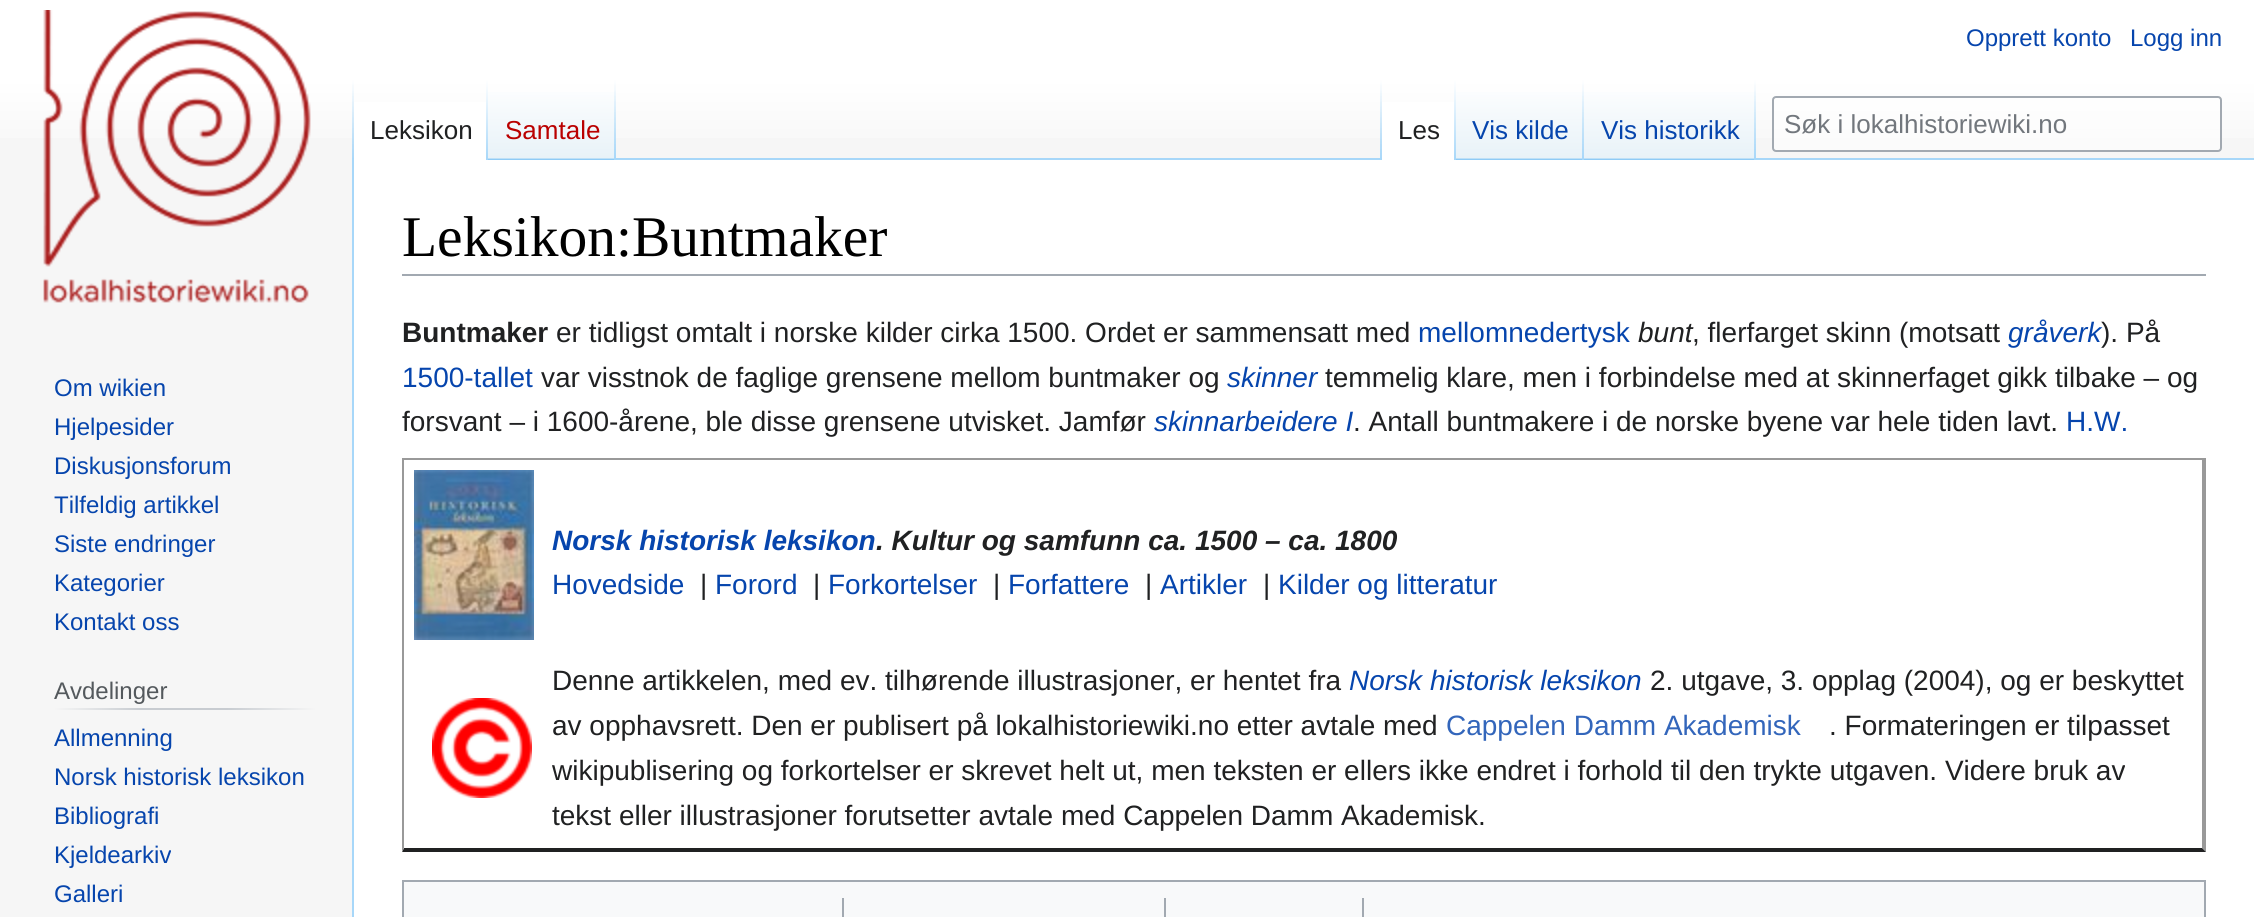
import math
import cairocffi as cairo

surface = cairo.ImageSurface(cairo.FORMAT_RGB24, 2254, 917)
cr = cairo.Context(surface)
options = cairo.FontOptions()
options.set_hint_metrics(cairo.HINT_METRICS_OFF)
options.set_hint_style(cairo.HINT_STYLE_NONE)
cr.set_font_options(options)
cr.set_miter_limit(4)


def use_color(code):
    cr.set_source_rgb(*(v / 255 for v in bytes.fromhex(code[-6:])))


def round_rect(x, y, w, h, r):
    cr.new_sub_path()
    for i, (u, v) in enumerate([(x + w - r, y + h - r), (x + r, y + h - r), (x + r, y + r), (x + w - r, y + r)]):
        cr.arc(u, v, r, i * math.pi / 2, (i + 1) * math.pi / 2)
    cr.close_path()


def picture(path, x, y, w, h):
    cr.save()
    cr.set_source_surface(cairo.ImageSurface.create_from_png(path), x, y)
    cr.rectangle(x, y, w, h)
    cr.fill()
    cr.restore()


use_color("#f6f6f6")
cr.paint()
gradient = cairo.LinearGradient(1127, 0, 1127, 160)
gradient.add_color_stop_rgba(0.5, 1, 1, 1, 1)
gradient.add_color_stop_rgba(1, 0.965, 0.965, 0.965, 1)
cr.set_source(gradient)
cr.rectangle(0, 0, 2254, 138)
cr.fill()
cr.select_font_face("Liberation Sans")
cr.set_font_size(24)
use_color("#0645ad")
cr.move_to(1966, 46)
cr.show_text("Opprett konto")
cr.move_to(2130, 46)
cr.show_text("Logg inn")
use_color("#a7d7f9")
cr.rectangle(352, 158, 2, 759)
cr.fill()
gradient = cairo.LinearGradient(353, 80, 353, 160)
gradient.add_color_stop_rgba(0, 0.655, 0.843, 0.976, 0)
gradient.add_color_stop_rgba(1, 0.655, 0.843, 0.976, 1)
cr.set_source(gradient)
cr.rectangle(352, 80, 2, 80)
cr.fill()
use_color("#ffffff")
cr.rectangle(354, 102, 132, 58)
cr.fill()
gradient = cairo.LinearGradient(487, 80, 487, 160)
gradient.add_color_stop_rgba(0, 1, 1, 1, 1)
gradient.add_color_stop_rgba(1, 0.655, 0.843, 0.976, 1)
cr.set_source(gradient)
cr.rectangle(486, 80, 2, 80)
cr.fill()
cr.set_font_size(26)
use_color("#202122")
cr.move_to(370, 139)
cr.show_text("Leksikon")
gradient = cairo.LinearGradient(552, 160, 552, 80)
gradient.add_color_stop_rgba(0, 0.467, 0.757, 0.965, 1)
gradient.add_color_stop_rgba(0.03, 0.91, 0.949, 0.973, 1)
gradient.add_color_stop_rgba(1, 1, 1, 1, 1)
cr.set_source(gradient)
cr.rectangle(488, 92, 128, 68)
cr.fill()
gradient = cairo.LinearGradient(615, 80, 615, 160)
gradient.add_color_stop_rgba(0, 0.655, 0.843, 0.976, 0)
gradient.add_color_stop_rgba(1, 0.655, 0.843, 0.976, 1)
cr.set_source(gradient)
cr.rectangle(614, 80, 2, 80)
cr.fill()
use_color("#ba0000")
cr.move_to(505, 139)
cr.show_text("Samtale")
use_color("#a7d7f9")
cr.rectangle(616, 158, 1638, 2)
cr.fill()
gradient = cairo.LinearGradient(1381, 80, 1381, 160)
gradient.add_color_stop_rgba(0, 0.655, 0.843, 0.976, 0)
gradient.add_color_stop_rgba(1, 0.655, 0.843, 0.976, 1)
cr.set_source(gradient)
cr.rectangle(1380, 80, 2, 80)
cr.fill()
use_color("#ffffff")
cr.rectangle(1382, 102, 72, 58)
cr.fill()
gradient = cairo.LinearGradient(1455, 80, 1455, 160)
gradient.add_color_stop_rgba(0, 1, 1, 1, 1)
gradient.add_color_stop_rgba(1, 0.655, 0.843, 0.976, 1)
cr.set_source(gradient)
cr.rectangle(1454, 80, 2, 80)
cr.fill()
use_color("#202122")
cr.move_to(1398, 139)
cr.show_text("Les")
gradient = cairo.LinearGradient(1520, 160, 1520, 80)
gradient.add_color_stop_rgba(0, 0.467, 0.757, 0.965, 1)
gradient.add_color_stop_rgba(0.03, 0.91, 0.949, 0.973, 1)
gradient.add_color_stop_rgba(1, 1, 1, 1, 1)
cr.set_source(gradient)
cr.rectangle(1456, 92, 128, 68)
cr.fill()
gradient = cairo.LinearGradient(1583, 80, 1583, 160)
gradient.add_color_stop_rgba(0, 0.655, 0.843, 0.976, 0)
gradient.add_color_stop_rgba(1, 0.655, 0.843, 0.976, 1)
cr.set_source(gradient)
cr.rectangle(1582, 80, 2, 80)
cr.fill()
use_color("#0645ad")
cr.move_to(1472, 139)
cr.show_text("Vis kilde")
gradient = cairo.LinearGradient(1670, 160, 1670, 80)
gradient.add_color_stop_rgba(0, 0.467, 0.757, 0.965, 1)
gradient.add_color_stop_rgba(0.03, 0.91, 0.949, 0.973, 1)
gradient.add_color_stop_rgba(1, 1, 1, 1, 1)
cr.set_source(gradient)
cr.rectangle(1584, 92, 172, 68)
cr.fill()
gradient = cairo.LinearGradient(1755, 80, 1755, 160)
gradient.add_color_stop_rgba(0, 0.655, 0.843, 0.976, 0)
gradient.add_color_stop_rgba(1, 0.655, 0.843, 0.976, 1)
cr.set_source(gradient)
cr.rectangle(1754, 80, 2, 80)
cr.fill()
use_color("#0645ad")
cr.move_to(1601, 139)
cr.show_text("Vis historikk")
cr.set_source_rgba(1, 1, 1, 0.5)
round_rect(1773, 97, 448, 54, 3)
cr.fill_preserve()
use_color("#a2a9b1")
cr.stroke()
use_color("#72777d")
cr.move_to(1784, 133)
cr.show_text("Søk i lokalhistoriewiki.no")
picture("img1.png", 43, 10, 268, 293)
cr.set_font_size(24)
use_color("#0645ad")
cr.move_to(54, 396)
cr.show_text("Om wikien")
cr.move_to(54, 435)
cr.show_text("Hjelpesider")
cr.move_to(54, 474)
cr.show_text("Diskusjonsforum")
cr.move_to(54, 513)
cr.show_text("Tilfeldig artikkel")
cr.move_to(54, 552)
cr.show_text("Siste endringer")
cr.move_to(54, 591)
cr.show_text("Kategorier")
cr.move_to(54, 630)
cr.show_text("Kontakt oss")
gradient = cairo.LinearGradient(54, 709, 316, 709)
gradient.add_color_stop_rgba(0, 0.965, 0.965, 0.965, 1)
gradient.add_color_stop_rgba(0.33, 0.784, 0.8, 0.82, 1)
gradient.add_color_stop_rgba(0.66, 0.784, 0.8, 0.82, 1)
gradient.add_color_stop_rgba(1, 0.965, 0.965, 0.965, 1)
cr.set_source(gradient)
cr.rectangle(54, 708, 262, 2)
cr.fill()
use_color("#54595d")
cr.move_to(54, 699)
cr.show_text("Avdelinger")
use_color("#0645ad")
cr.move_to(54, 746)
cr.show_text("Allmenning")
cr.move_to(54, 785)
cr.show_text("Norsk historisk leksikon")
cr.move_to(54, 824)
cr.show_text("Bibliografi")
cr.move_to(54, 863)
cr.show_text("Kjeldearkiv")
cr.move_to(54, 902)
cr.show_text("Galleri")
use_color("#ffffff")
cr.rectangle(354, 160, 1900, 757)
cr.fill()
use_color("#a2a9b1")
cr.rectangle(402, 274, 1804, 2)
cr.fill()
cr.select_font_face("Liberation Serif")
cr.set_font_size(57.5)
use_color("#000000")
cr.move_to(402, 256)
cr.show_text("Leksikon:Buntmaker")
cr.select_font_face("Liberation Sans", cairo.FONT_SLANT_NORMAL, cairo.FONT_WEIGHT_BOLD)
cr.set_font_size(28)
use_color("#202122")
cr.move_to(402, 342)
cr.show_text("Buntmaker")
cr.select_font_face("Liberation Sans")
cr.move_to(556, 342)
cr.show_text("er tidligst omtalt i norske kilder cirka 1500. Ordet er sammensatt med")
use_color("#0645ad")
cr.move_to(1418, 342)
cr.show_text("mellomnedertysk")
cr.select_font_face("Liberation Sans", cairo.FONT_SLANT_ITALIC)
use_color("#202122")
cr.move_to(1638, 342)
cr.show_text("bunt")
cr.select_font_face("Liberation Sans")
cr.move_to(1692, 342)
cr.show_text(", flerfarget skinn (motsatt")
cr.select_font_face("Liberation Sans", cairo.FONT_SLANT_ITALIC)
use_color("#0645ad")
cr.move_to(2008, 342)
cr.show_text("gråverk")
cr.select_font_face("Liberation Sans")
use_color("#202122")
cr.move_to(2101, 342)
cr.show_text("). På")
use_color("#0645ad")
cr.move_to(402, 387)
cr.show_text("1500-tallet")
use_color("#202122")
cr.move_to(541, 387)
cr.show_text("var visstnok de faglige grensene mellom buntmaker og")
cr.select_font_face("Liberation Sans", cairo.FONT_SLANT_ITALIC)
use_color("#0645ad")
cr.move_to(1227, 387)
cr.show_text("skinner")
cr.select_font_face("Liberation Sans")
use_color("#202122")
cr.move_to(1325, 387)
cr.show_text("temmelig klare, men i forbindelse med at skinnerfaget gikk tilbake – og")
cr.move_to(402, 431)
cr.show_text("forsvant – i 1600-årene, ble disse grensene utvisket. Jamfør")
cr.select_font_face("Liberation Sans", cairo.FONT_SLANT_ITALIC)
use_color("#0645ad")
cr.move_to(1154, 431)
cr.show_text("skinnarbeidere I")
cr.select_font_face("Liberation Sans")
use_color("#202122")
cr.move_to(1353, 431)
cr.show_text(". Antall buntmakere i de norske byene var hele tiden lavt.")
use_color("#0645ad")
cr.move_to(2066, 431)
cr.show_text("H.W.")
use_color("#999999")
cr.rectangle(402, 458, 1804, 2)
cr.fill()
cr.new_path()
cr.move_to(2206, 458)
cr.line_to(2206, 852)
cr.line_to(2202, 848)
cr.line_to(2202, 460)
cr.close_path()
cr.fill()
use_color("#202122")
cr.new_path()
cr.move_to(2206, 852)
cr.line_to(402, 852)
cr.line_to(404, 848)
cr.line_to(2202, 848)
cr.close_path()
cr.fill()
use_color("#999999")
cr.new_path()
cr.move_to(402, 852)
cr.line_to(402, 458)
cr.line_to(404, 460)
cr.line_to(404, 848)
cr.close_path()
cr.fill()
picture("img2.png", 414, 470, 120, 170)
cr.select_font_face("Liberation Sans", cairo.FONT_SLANT_ITALIC, cairo.FONT_WEIGHT_BOLD)
use_color("#0645ad")
cr.move_to(552, 550)
cr.show_text("Norsk historisk leksikon")
use_color("#202122")
cr.move_to(876, 550)
cr.show_text(". Kultur og samfunn ca. 1500 – ca. 1800")
cr.select_font_face("Liberation Sans")
use_color("#0645ad")
cr.move_to(552, 594)
cr.show_text("Hovedside")
use_color("#202122")
cr.move_to(700, 594)
cr.show_text("|")
use_color("#0645ad")
cr.move_to(715, 594)
cr.show_text("Forord")
use_color("#202122")
cr.move_to(813, 594)
cr.show_text("|")
use_color("#0645ad")
cr.move_to(828, 594)
cr.show_text("Forkortelser")
use_color("#202122")
cr.move_to(993, 594)
cr.show_text("|")
use_color("#0645ad")
cr.move_to(1008, 594)
cr.show_text("Forfattere")
use_color("#202122")
cr.move_to(1145, 594)
cr.show_text("|")
use_color("#0645ad")
cr.move_to(1160, 594)
cr.show_text("Artikler")
use_color("#202122")
cr.move_to(1263, 594)
cr.show_text("|")
use_color("#0645ad")
cr.move_to(1278, 594)
cr.show_text("Kilder og litteratur")
picture("img3.png", 432, 698, 100, 100)
use_color("#202122")
cr.move_to(552, 690)
cr.show_text("Denne artikkelen, med ev. tilhørende illustrasjoner, er hentet fra")
cr.select_font_face("Liberation Sans", cairo.FONT_SLANT_ITALIC)
use_color("#0645ad")
cr.move_to(1349, 690)
cr.show_text("Norsk historisk leksikon")
cr.select_font_face("Liberation Sans")
use_color("#202122")
cr.move_to(1650, 690)
cr.show_text("2. utgave, 3. opplag (2004), og er beskyttet")
cr.move_to(552, 735)
cr.show_text("av opphavsrett. Den er publisert på lokalhistoriewiki.no etter avtale med")
use_color("#3366bb")
cr.move_to(1446, 735)
cr.show_text("Cappelen Damm Akademisk")
use_color("#202122")
cr.move_to(1829, 735)
cr.show_text(". Formateringen er tilpasset")
cr.move_to(552, 780)
cr.show_text("wikipublisering og forkortelser er skrevet helt ut, men teksten er ellers ikke endret i forhold til den trykte utgaven. Videre bruk av")
cr.move_to(552, 825)
cr.show_text("tekst eller illustrasjoner forutsetter avtale med Cappelen Damm Akademisk.")
use_color("#f8f9fa")
cr.rectangle(403, 881, 1802, 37)
cr.fill_preserve()
use_color("#a2a9b1")
cr.stroke()
cr.rectangle(842, 898, 2, 19)
cr.fill()
cr.rectangle(1164, 898, 2, 19)
cr.fill()
cr.rectangle(1362, 898, 2, 19)
cr.fill()
surface.write_to_png("result.png")
